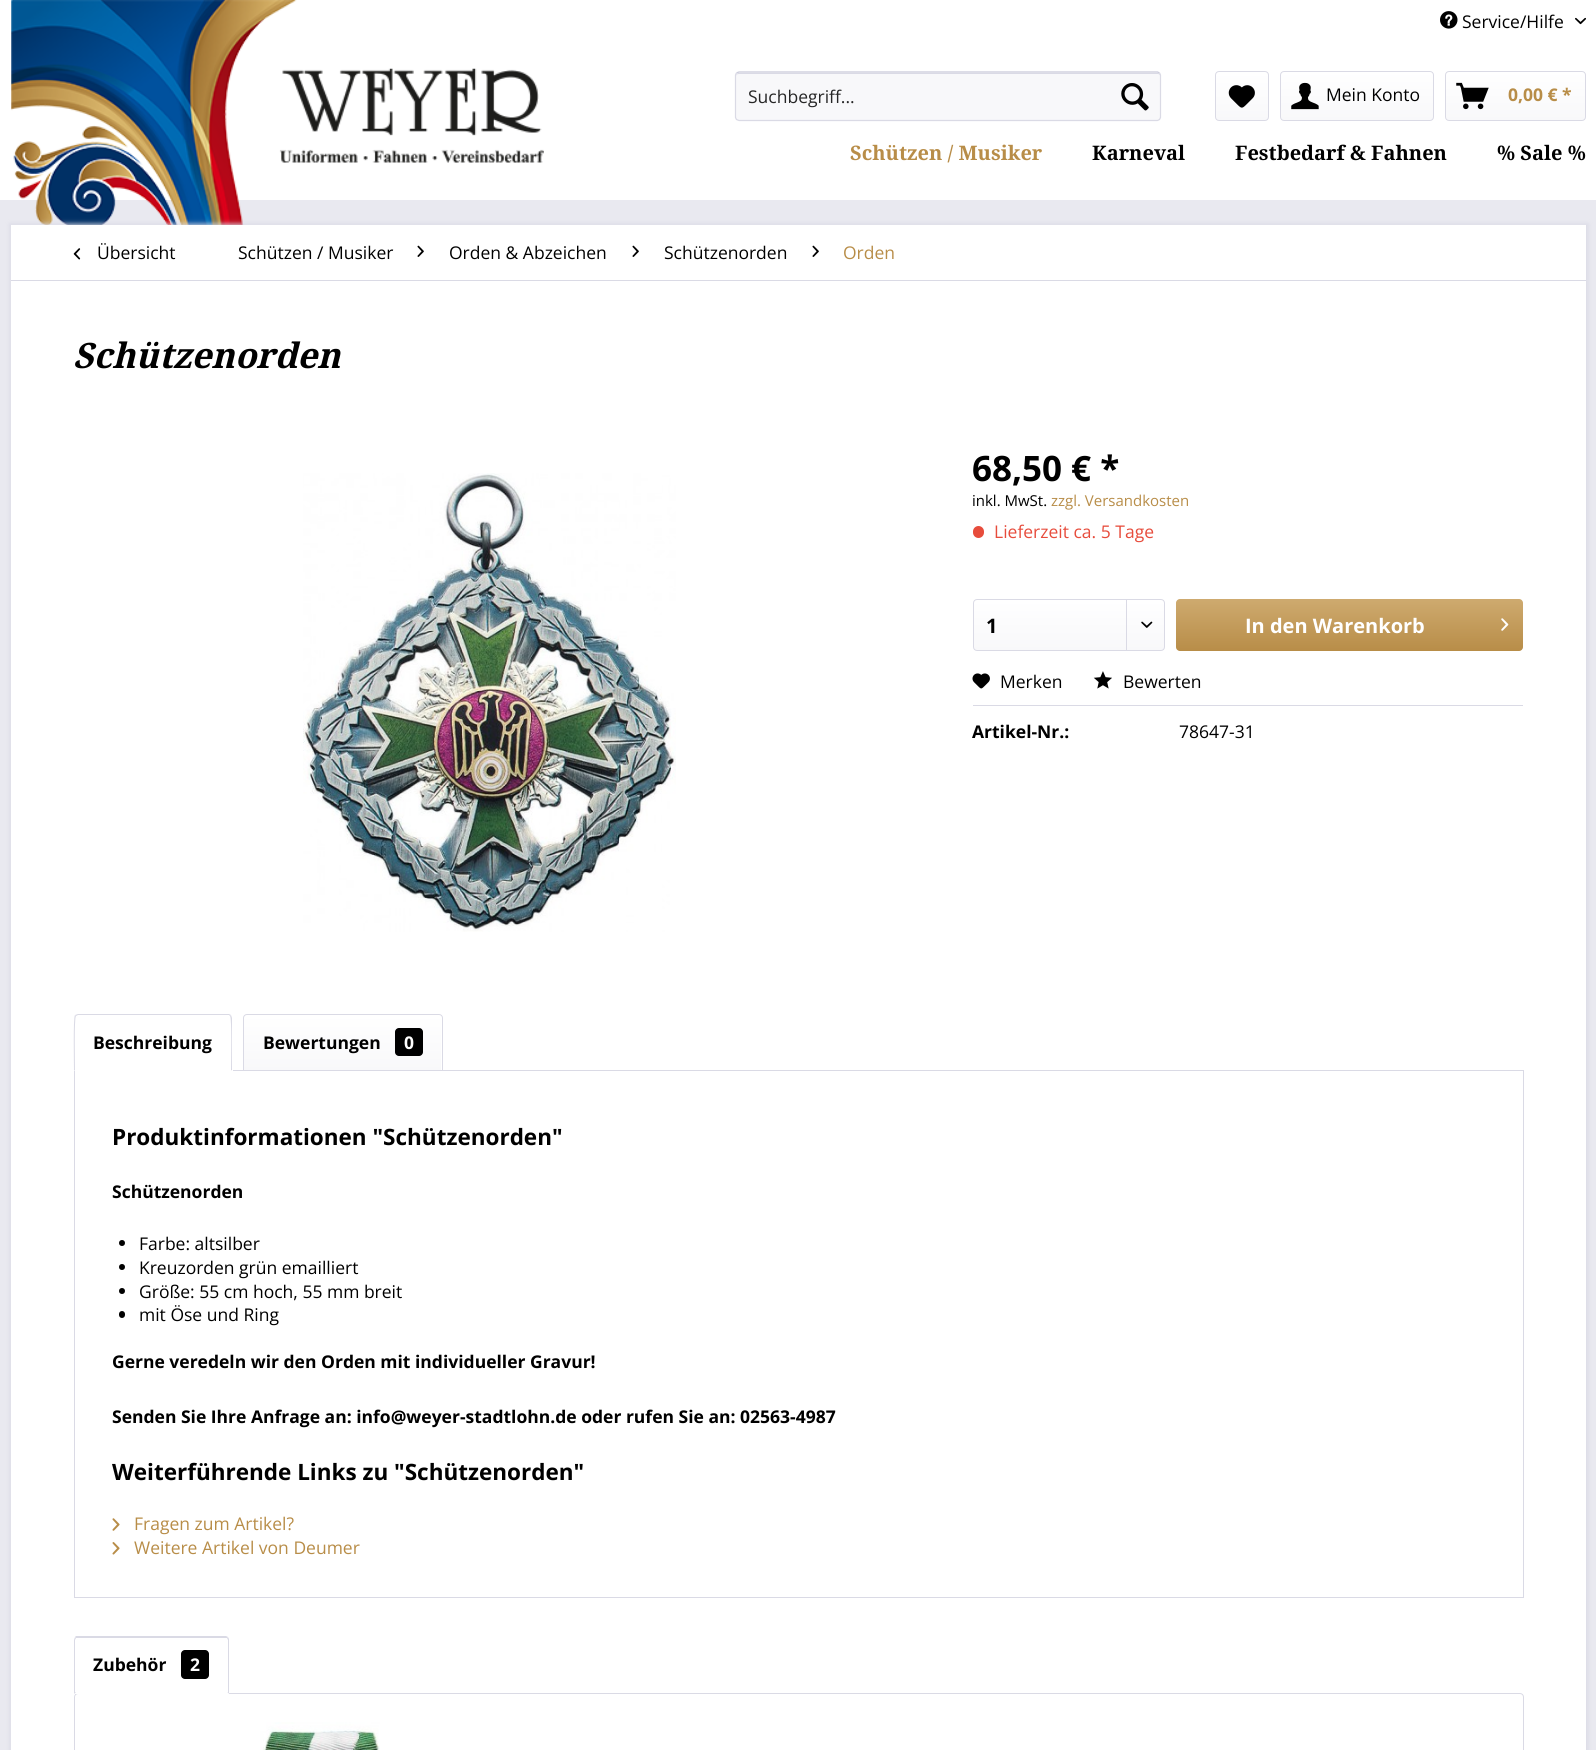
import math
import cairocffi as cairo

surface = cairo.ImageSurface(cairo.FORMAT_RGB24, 1596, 1750)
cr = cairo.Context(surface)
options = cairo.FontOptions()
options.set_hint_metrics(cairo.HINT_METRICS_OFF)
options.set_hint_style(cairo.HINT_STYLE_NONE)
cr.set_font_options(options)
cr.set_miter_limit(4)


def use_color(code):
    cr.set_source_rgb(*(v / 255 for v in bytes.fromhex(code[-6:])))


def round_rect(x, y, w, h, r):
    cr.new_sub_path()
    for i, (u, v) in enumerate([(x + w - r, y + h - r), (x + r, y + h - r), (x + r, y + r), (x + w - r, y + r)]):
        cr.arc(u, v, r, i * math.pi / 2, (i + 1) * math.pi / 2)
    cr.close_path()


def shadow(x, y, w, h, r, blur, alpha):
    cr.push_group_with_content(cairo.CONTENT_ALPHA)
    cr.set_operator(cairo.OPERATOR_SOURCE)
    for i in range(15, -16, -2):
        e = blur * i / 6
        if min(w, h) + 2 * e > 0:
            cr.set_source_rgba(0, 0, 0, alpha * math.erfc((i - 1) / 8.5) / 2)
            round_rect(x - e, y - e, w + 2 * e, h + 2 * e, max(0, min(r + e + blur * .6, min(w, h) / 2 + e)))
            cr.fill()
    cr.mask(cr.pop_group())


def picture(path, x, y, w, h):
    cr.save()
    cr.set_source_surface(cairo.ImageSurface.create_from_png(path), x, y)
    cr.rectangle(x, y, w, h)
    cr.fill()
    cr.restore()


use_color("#e9e9f0")
cr.paint()
use_color("#ffffff")
cr.rectangle(0, 0, 1596, 200)
cr.fill()
picture("img1.png", 11, 0, 533, 225)
picture("img2.png", 1440, 11, 18, 18)
cr.select_font_face("Open Sans")
cr.set_font_size(17.5)
use_color("#000000")
cr.move_to(1462, 28)
cr.show_text("Service/Hilfe")
picture("img3.png", 1575, 17, 11, 8)
use_color("#f8f8fa")
round_rect(735, 71, 426, 50, 4)
cr.fill()
use_color("#dadae5")
cr.new_path()
cr.move_to(739, 74)
cr.line_to(1158, 74)
cr.curve_to(1159, 74, 1160, 75, 1160, 76)
cr.curve_to(1160, 74, 1159, 73, 1158, 73)
cr.line_to(738, 73)
cr.line_to(736, 75)
cr.line_to(736, 76)
cr.curve_to(736, 75, 737, 74, 739, 74)
cr.close_path()
cr.fill()
cr.new_path()
cr.move_to(736.5, 73)
cr.line_to(739, 72)
cr.line_to(1157.5, 72)
cr.line_to(1159.5, 73)
use_color("#cbcbdb")
cr.set_line_width(1.2)
cr.stroke()
cr.new_path()
cr.move_to(1159.5, 73)
cr.line_to(1160.5, 75)
cr.line_to(1160.5, 117.5)
cr.line_to(1159.5, 119.5)
cr.line_to(1157.5, 120.5)
cr.line_to(739, 120.5)
cr.line_to(736.5, 119.5)
cr.line_to(735.5, 117.5)
cr.line_to(735.5, 75)
cr.line_to(736.5, 73)
use_color("#dadae5")
cr.stroke()
use_color("#262626")
cr.move_to(748, 103)
cr.show_text("Suchbegriff...")
picture("img4.png", 1121, 83, 28, 28)
gradient = cairo.LinearGradient(1242, 73, 1242, 120)
gradient.add_color_stop_rgba(0, 1, 1, 1, 1)
gradient.add_color_stop_rgba(1, 0.973, 0.973, 0.98, 1)
cr.set_source(gradient)
round_rect(1216, 73, 52, 47, 2.5)
cr.fill()
round_rect(1215.5, 71.5, 53, 49, 3.5)
use_color("#dadae5")
cr.set_line_width(1)
cr.stroke()
picture("img5.png", 1228, 85, 27, 23)
gradient = cairo.LinearGradient(1357, 72, 1357, 120)
gradient.add_color_stop_rgba(0, 1, 1, 1, 1)
gradient.add_color_stop_rgba(1, 0.973, 0.973, 0.98, 1)
cr.set_source(gradient)
round_rect(1281, 73, 152, 47, 2.5)
cr.fill()
round_rect(1280.5, 71.5, 153, 49, 3.5)
use_color("#dadae5")
cr.stroke()
picture("img6.png", 1291, 82, 28, 28)
use_color("#000000")
cr.move_to(1326, 101)
cr.show_text("Mein Konto")
gradient = cairo.LinearGradient(1516, 72, 1516, 120)
gradient.add_color_stop_rgba(0, 1, 1, 1, 1)
gradient.add_color_stop_rgba(1, 0.973, 0.973, 0.98, 1)
cr.set_source(gradient)
round_rect(1446, 73, 139, 47, 2.5)
cr.fill()
round_rect(1445.5, 71.5, 140, 49, 3.5)
use_color("#dadae5")
cr.stroke()
picture("img7.png", 1456, 82, 33, 28)
cr.select_font_face("Open Sans", cairo.FONT_SLANT_NORMAL, cairo.FONT_WEIGHT_BOLD)
use_color("#b88d48")
cr.move_to(1508, 101)
cr.show_text("0,00 € *")
cr.select_font_face("Droid Serif", cairo.FONT_SLANT_NORMAL, cairo.FONT_WEIGHT_BOLD)
cr.set_font_size(20)
cr.move_to(850, 160)
cr.show_text("Schützen / Musiker")
use_color("#000000")
cr.move_to(1092, 160)
cr.show_text("Karneval")
cr.move_to(1235, 160)
cr.show_text("Festbedarf & Fahnen")
cr.move_to(1497, 160)
cr.show_text("% Sale %")
use_color("#dadae5")
shadow(10, 224, 1578, 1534, 0, 2.5, 1)
use_color("#ffffff")
cr.rectangle(11, 225, 1575, 1525)
cr.fill()
use_color("#dadae5")
cr.rectangle(11, 280, 1575, 1)
cr.fill()
picture("img8.png", 73, 248, 8, 12)
cr.select_font_face("Open Sans")
cr.set_font_size(17.5)
use_color("#000000")
cr.move_to(97, 259)
cr.show_text("Übersicht")
cr.move_to(238, 259)
cr.show_text("Schützen / Musiker")
picture("img9.png", 417, 245, 7, 12)
cr.move_to(449, 259)
cr.show_text("Orden & Abzeichen")
picture("img9.png", 632, 245, 7, 12)
cr.move_to(664, 259)
cr.show_text("Schützenorden")
picture("img9.png", 812, 245, 7, 12)
use_color("#b88d48")
cr.move_to(843, 259)
cr.show_text("Orden")
cr.select_font_face("Droid Serif", cairo.FONT_SLANT_ITALIC, cairo.FONT_WEIGHT_BOLD)
cr.set_font_size(35)
use_color("#000000")
cr.move_to(73, 368)
cr.show_text("Schützenorden")
picture("img10.png", 303, 473, 373, 459)
cr.select_font_face("Open Sans", cairo.FONT_SLANT_NORMAL, cairo.FONT_WEIGHT_BOLD)
cr.move_to(972, 481)
cr.show_text("68,50 € *")
cr.select_font_face("Open Sans")
cr.set_font_size(15)
cr.move_to(972, 506)
cr.show_text("inkl. MwSt.")
use_color("#b88d48")
cr.move_to(1051, 506)
cr.show_text("zzgl. Versandkosten")
use_color("#e74c3c")
round_rect(973, 526, 11, 12, 5.5)
cr.fill()
cr.set_font_size(17.5)
cr.move_to(994, 538)
cr.show_text("Lieferzeit ca. 5 Tage")
gradient = cairo.LinearGradient(1069, 600, 1069, 650)
gradient.add_color_stop_rgba(0, 1, 1, 1, 1)
gradient.add_color_stop_rgba(1, 0.973, 0.973, 0.98, 1)
cr.set_source(gradient)
round_rect(974, 600, 190, 50, 2.5)
cr.fill()
round_rect(973.5, 599.5, 191, 51, 3.5)
use_color("#dadae5")
cr.stroke()
cr.select_font_face("Open Sans", cairo.FONT_SLANT_NORMAL, cairo.FONT_WEIGHT_BOLD)
cr.set_font_size(20)
use_color("#000000")
cr.move_to(986, 633)
cr.show_text("1")
use_color("#dadae5")
cr.rectangle(1126, 600, 1, 50)
cr.fill()
picture("img11.png", 1141, 621, 12, 7)
gradient = cairo.LinearGradient(1349, 599, 1349, 651)
gradient.add_color_stop_rgba(0, 0.808, 0.667, 0.435, 1)
gradient.add_color_stop_rgba(1, 0.722, 0.553, 0.282, 1)
cr.set_source(gradient)
round_rect(1176, 599, 347, 52, 4)
cr.fill()
use_color("#ffffff")
cr.move_to(1245, 633)
cr.show_text("In den Warenkorb")
picture("img12.png", 1501, 618, 8, 13)
use_color("#dadae5")
cr.rectangle(973, 705, 550, 1)
cr.fill()
picture("img13.png", 972, 673, 18, 16)
cr.select_font_face("Open Sans")
cr.set_font_size(17.5)
use_color("#000000")
cr.move_to(1000, 688)
cr.show_text("Merken")
picture("img14.png", 1093, 671, 19, 18)
cr.move_to(1123, 688)
cr.show_text("Bewerten")
cr.select_font_face("Open Sans", cairo.FONT_SLANT_NORMAL, cairo.FONT_WEIGHT_BOLD)
cr.move_to(972, 738)
cr.show_text("Artikel-Nr.:")
cr.select_font_face("Open Sans")
cr.move_to(1179, 738)
cr.show_text("78647-31")
cr.rectangle(74.5, 1070.5, 1449, 527)
use_color("#dadae5")
cr.stroke()
use_color("#ffffff")
cr.new_path()
cr.move_to(78, 1014)
cr.line_to(229, 1014)
cr.curve_to(231, 1014, 233, 1016, 233, 1018)
cr.line_to(233, 1071)
cr.line_to(74, 1071)
cr.line_to(74, 1018)
cr.curve_to(74, 1016, 76, 1014, 78, 1014)
cr.close_path()
cr.fill()
use_color("#dadae5")
cr.new_path()
cr.move_to(78, 1014)
cr.line_to(75, 1015)
cr.line_to(76, 1016)
cr.line_to(78, 1015)
cr.line_to(229, 1015)
cr.line_to(230, 1016)
cr.line_to(231, 1015)
cr.line_to(229, 1014)
cr.close_path()
cr.fill()
cr.new_path()
cr.move_to(232, 1071)
cr.line_to(232, 1018)
cr.line_to(231, 1015)
cr.line_to(230, 1016)
cr.curve_to(232, 1018, 231, 1063, 231, 1070)
cr.close_path()
cr.fill()
use_color("#ffffff")
cr.new_path()
cr.move_to(232, 1071)
cr.line_to(74, 1071)
cr.line_to(75, 1070)
cr.line_to(231, 1070)
cr.close_path()
cr.fill()
use_color("#dadae5")
cr.new_path()
cr.move_to(75, 1015)
cr.curve_to(73, 1017, 74, 1065, 74, 1071)
cr.line_to(75, 1070)
cr.curve_to(75, 1064, 74, 1018, 76, 1016)
cr.close_path()
cr.fill()
cr.select_font_face("Open Sans", cairo.FONT_SLANT_NORMAL, cairo.FONT_WEIGHT_BOLD)
use_color("#000000")
cr.move_to(93, 1049)
cr.show_text("Beschreibung")
gradient = cairo.LinearGradient(343, 1015, 343, 1070)
gradient.add_color_stop_rgba(0, 1, 1, 1, 1)
gradient.add_color_stop_rgba(1, 0.973, 0.973, 0.98, 1)
cr.set_source(gradient)
cr.new_path()
cr.move_to(246.5, 1015)
cr.line_to(438.5, 1015)
cr.curve_to(440, 1015, 441, 1016, 441, 1017.5)
cr.line_to(441, 1070)
cr.line_to(244, 1070)
cr.line_to(244, 1017.5)
cr.curve_to(244, 1016, 245, 1015, 246.5, 1015)
cr.close_path()
cr.fill()
cr.new_path()
cr.move_to(247, 1014.5)
cr.line_to(439, 1014.5)
cr.curve_to(441, 1014.5, 442.5, 1016, 442.5, 1018)
cr.line_to(442.5, 1070.5)
cr.line_to(243.5, 1070.5)
cr.line_to(243.5, 1018)
cr.curve_to(243.5, 1016, 245, 1014.5, 247, 1014.5)
cr.close_path()
use_color("#dadae5")
cr.stroke()
use_color("#000000")
cr.move_to(263, 1049)
cr.show_text("Bewertungen")
round_rect(395, 1028, 28, 28, 4)
cr.fill()
use_color("#ffffff")
cr.move_to(404, 1049)
cr.show_text("0")
cr.set_font_size(22.5)
use_color("#000000")
cr.move_to(112, 1145)
cr.show_text("Produktinformationen \"Schützenorden\"")
cr.set_font_size(17.5)
cr.move_to(112, 1198)
cr.show_text("Schützenorden")
cr.new_path()
cr.arc(122, 1243, 3, 0, 2 * math.pi)
cr.fill()
cr.select_font_face("Open Sans")
cr.move_to(139, 1250)
cr.show_text("Farbe: altsilber")
cr.new_path()
cr.arc(122, 1267, 3, 0, 2 * math.pi)
cr.fill()
cr.move_to(139, 1274)
cr.show_text("Kreuzorden grün emailliert")
cr.new_path()
cr.arc(122, 1291, 3, 0, 2 * math.pi)
cr.fill()
cr.move_to(139, 1298)
cr.show_text("Größe: 55 cm hoch, 55 mm breit")
round_rect(119, 1311, 6, 7, 3)
cr.fill()
cr.move_to(139, 1321)
cr.show_text("mit Öse und Ring")
cr.select_font_face("Open Sans", cairo.FONT_SLANT_NORMAL, cairo.FONT_WEIGHT_BOLD)
cr.move_to(112, 1368)
cr.show_text("Gerne veredeln wir den Orden mit individueller Gravur!")
cr.move_to(112, 1423)
cr.show_text("Senden Sie Ihre Anfrage an: info@weyer-stadtlohn.de oder rufen Sie an: 02563-4987")
cr.set_font_size(22.5)
cr.move_to(112, 1480)
cr.show_text("Weiterführende Links zu \"Schützenorden\"")
picture("img15.png", 112, 1518, 8, 13)
cr.select_font_face("Open Sans")
cr.set_font_size(17.5)
use_color("#b88d48")
cr.move_to(134, 1530)
cr.show_text("Fragen zum Artikel?")
picture("img16.png", 112, 1542, 8, 13)
cr.move_to(134, 1554)
cr.show_text("Weitere Artikel von Deumer")
round_rect(74.5, 1693.5, 1449, 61, 3.5)
use_color("#dadae5")
cr.stroke()
use_color("#ffffff")
cr.new_path()
cr.move_to(78, 1636)
cr.line_to(225, 1636)
cr.curve_to(227, 1636, 229, 1638, 229, 1640)
cr.line_to(229, 1694)
cr.line_to(74, 1694)
cr.line_to(74, 1640)
cr.curve_to(74, 1638, 76, 1636, 78, 1636)
cr.close_path()
cr.fill()
use_color("#dadae5")
cr.new_path()
cr.move_to(78, 1638)
cr.line_to(76, 1638)
cr.line_to(75, 1637)
cr.line_to(76, 1636)
cr.line_to(226, 1636)
cr.line_to(228, 1637)
cr.line_to(227, 1638)
cr.line_to(225, 1638)
cr.close_path()
cr.fill()
cr.new_path()
cr.move_to(228, 1637)
cr.line_to(229, 1639)
cr.line_to(229, 1694)
cr.line_to(227, 1692)
cr.line_to(228, 1692)
cr.line_to(228, 1640)
cr.line_to(227, 1638)
cr.close_path()
cr.fill()
use_color("#ffffff")
cr.new_path()
cr.move_to(229, 1694)
cr.line_to(74, 1694)
cr.line_to(76, 1692)
cr.line_to(227, 1692)
cr.close_path()
cr.fill()
use_color("#dadae5")
cr.new_path()
cr.move_to(74, 1694)
cr.line_to(74, 1640)
cr.line_to(75, 1637)
cr.line_to(76, 1638)
cr.line_to(75, 1640)
cr.line_to(75, 1692)
cr.line_to(76, 1692)
cr.close_path()
cr.fill()
cr.select_font_face("Open Sans", cairo.FONT_SLANT_NORMAL, cairo.FONT_WEIGHT_BOLD)
use_color("#000000")
cr.move_to(93, 1671)
cr.show_text("Zubehör")
round_rect(181, 1650, 28, 29, 4)
cr.fill()
use_color("#ffffff")
cr.move_to(190, 1671)
cr.show_text("2")
picture("img17.png", 260, 1722, 120, 28)
surface.write_to_png("result.png")
